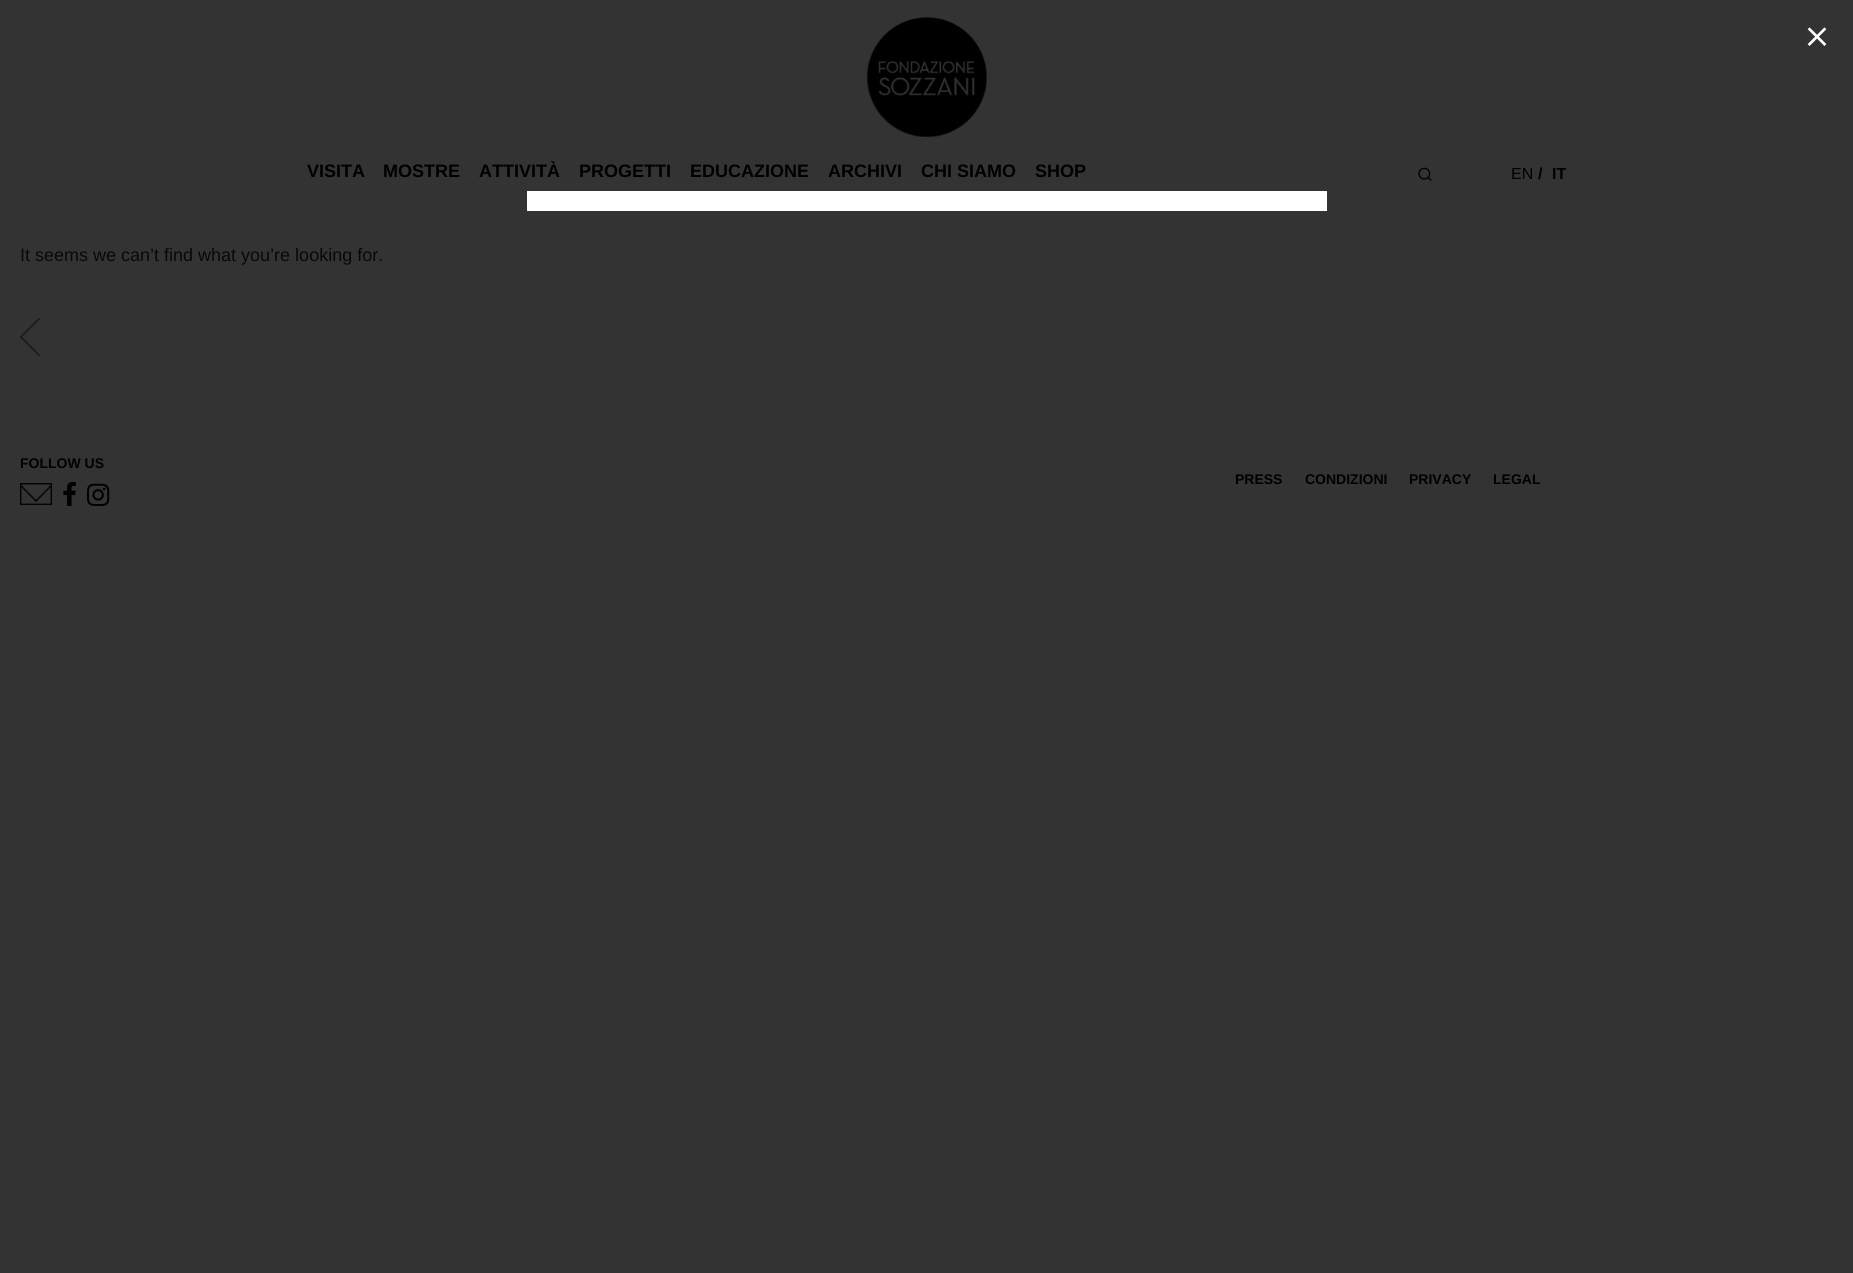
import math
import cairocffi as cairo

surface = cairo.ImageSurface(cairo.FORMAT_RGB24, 1853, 1273)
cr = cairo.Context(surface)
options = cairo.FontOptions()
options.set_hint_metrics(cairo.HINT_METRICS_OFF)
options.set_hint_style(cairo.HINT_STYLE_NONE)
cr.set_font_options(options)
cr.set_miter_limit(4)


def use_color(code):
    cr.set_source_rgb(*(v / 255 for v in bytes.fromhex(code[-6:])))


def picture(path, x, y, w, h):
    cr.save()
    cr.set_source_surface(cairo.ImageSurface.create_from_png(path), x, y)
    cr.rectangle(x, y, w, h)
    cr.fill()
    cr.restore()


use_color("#333333")
cr.paint()
picture("img1.png", 1807, 27, 20, 19)
use_color("#ffffff")
cr.rectangle(527, 191, 800, 20)
cr.fill()
cr.select_font_face("Liberation Sans", cairo.FONT_SLANT_NORMAL, cairo.FONT_WEIGHT_BOLD)
cr.set_font_size(18)
use_color("#000000")
cr.move_to(307, 177)
cr.show_text("VISITA")
cr.move_to(383, 177)
cr.show_text("MOSTRE")
cr.move_to(479, 177)
cr.show_text("ATTIVITÀ")
cr.move_to(579, 177)
cr.show_text("PROGETTI")
cr.move_to(690, 177)
cr.show_text("EDUCAZIONE")
cr.move_to(828, 177)
cr.show_text("ARCHIVI")
cr.move_to(921, 177)
cr.show_text("CHI SIAMO")
cr.move_to(1035, 177)
cr.show_text("SHOP")
picture("img2.png", 1418, 167, 14, 14)
cr.select_font_face("Liberation Sans")
cr.set_font_size(16)
cr.move_to(1511, 179)
cr.show_text("EN")
cr.select_font_face("Liberation Sans", cairo.FONT_SLANT_NORMAL, cairo.FONT_WEIGHT_BOLD)
cr.move_to(1538, 179)
cr.show_text("/")
cr.move_to(1552, 179)
cr.show_text("IT")
picture("img3.png", 866, 17, 121, 120)
cr.select_font_face("Liberation Sans")
cr.set_font_size(18)
use_color("#080808")
cr.move_to(20, 261)
cr.show_text("It seems we can’t find what you’re looking for.")
picture("img4.png", 20, 318, 20, 38)
cr.select_font_face("Liberation Sans", cairo.FONT_SLANT_NORMAL, cairo.FONT_WEIGHT_BOLD)
cr.set_font_size(14)
use_color("#000000")
cr.move_to(20, 468)
cr.show_text("FOLLOW US")
picture("img5.png", 20, 483, 32, 22)
picture("img6.png", 63, 481, 13, 25)
picture("img7.png", 87, 483, 23, 23)
cr.move_to(1235, 484)
cr.show_text("PRESS")
cr.move_to(1305, 484)
cr.show_text("CONDIZIONI")
cr.move_to(1409, 484)
cr.show_text("PRIVACY")
cr.move_to(1493, 484)
cr.show_text("LEGAL")
surface.write_to_png("result.png")
